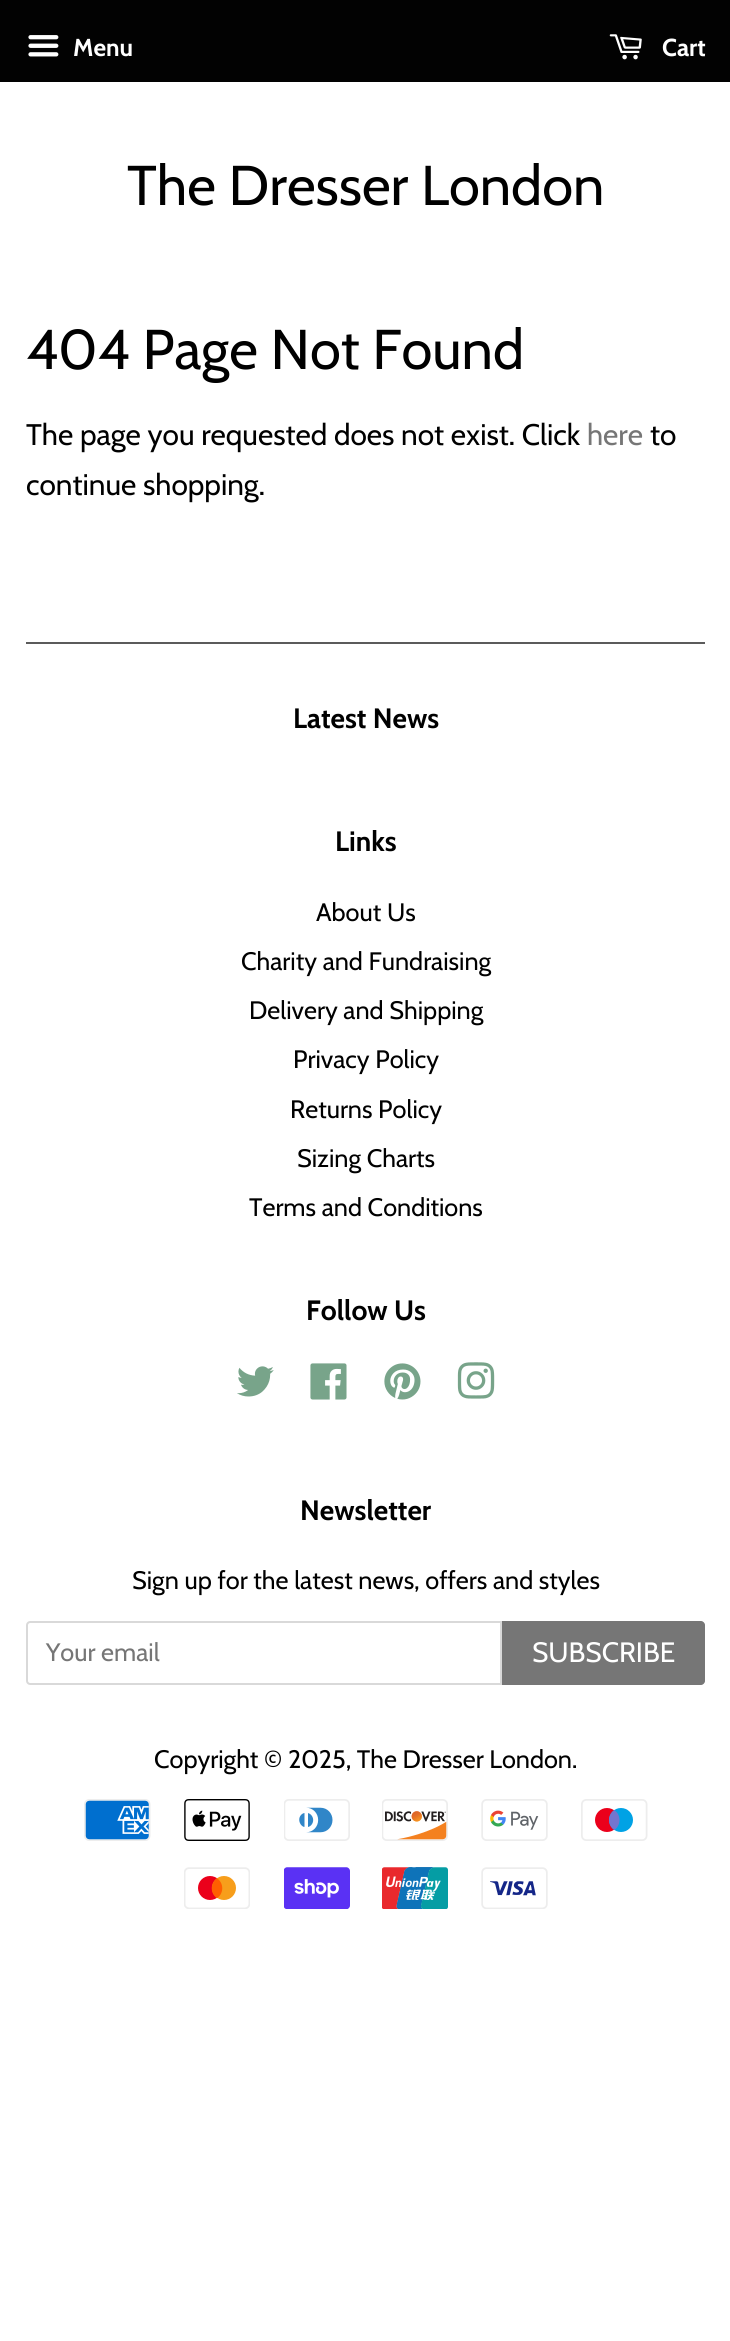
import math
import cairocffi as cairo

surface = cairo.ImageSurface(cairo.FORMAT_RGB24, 730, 2341)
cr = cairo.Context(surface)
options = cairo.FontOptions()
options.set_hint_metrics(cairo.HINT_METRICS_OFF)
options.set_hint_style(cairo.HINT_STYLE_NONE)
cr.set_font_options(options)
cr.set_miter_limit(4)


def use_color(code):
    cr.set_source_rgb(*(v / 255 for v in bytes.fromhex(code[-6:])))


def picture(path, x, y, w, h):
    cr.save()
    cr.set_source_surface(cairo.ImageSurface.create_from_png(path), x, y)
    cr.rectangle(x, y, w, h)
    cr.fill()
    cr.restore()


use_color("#ffffff")
cr.paint()
use_color("#020202")
cr.rectangle(0, 0, 730, 82)
cr.fill()
picture("img1.png", 28, 35, 31, 22)
cr.select_font_face("Cabin", cairo.FONT_SLANT_NORMAL, cairo.FONT_WEIGHT_BOLD)
cr.set_font_size(24.5)
use_color("#ffffff")
cr.move_to(73, 56)
cr.show_text("Menu")
picture("img2.png", 609, 34, 33, 26)
cr.move_to(662, 56)
cr.show_text("Cart")
cr.select_font_face("Cabin")
cr.set_font_size(56)
use_color("#000000")
cr.move_to(127, 205)
cr.show_text("The Dresser London")
cr.move_to(26, 369)
cr.show_text("404 Page Not Found")
cr.set_font_size(29.75)
cr.move_to(26, 445)
cr.show_text("The page you requested does not exist. Click")
use_color("#767676")
cr.move_to(587, 445)
cr.show_text("here")
use_color("#000000")
cr.move_to(650, 445)
cr.show_text("to")
cr.move_to(26, 495)
cr.show_text("continue shopping.")
use_color("#5b5b5b")
cr.rectangle(26, 642, 679, 2)
cr.fill()
cr.select_font_face("Cabin", cairo.FONT_SLANT_NORMAL, cairo.FONT_WEIGHT_BOLD)
cr.set_font_size(28)
use_color("#000000")
cr.move_to(293, 728)
cr.show_text("Latest News")
cr.move_to(335, 851)
cr.show_text("Links")
cr.select_font_face("Cabin")
cr.set_font_size(25.25)
cr.move_to(316, 921)
cr.show_text("About Us")
cr.move_to(241, 970)
cr.show_text("Charity and Fundraising")
cr.move_to(249, 1019)
cr.show_text("Delivery and Shipping")
cr.move_to(293, 1068)
cr.show_text("Privacy Policy")
cr.move_to(290, 1118)
cr.show_text("Returns Policy")
cr.move_to(297, 1167)
cr.show_text("Sizing Charts")
cr.move_to(249, 1216)
cr.show_text("Terms and Conditions")
cr.select_font_face("Cabin", cairo.FONT_SLANT_NORMAL, cairo.FONT_WEIGHT_BOLD)
cr.set_font_size(28)
cr.move_to(306, 1320)
cr.show_text("Follow Us")
picture("img3.png", 237, 1366, 37, 31)
picture("img4.png", 310, 1363, 37, 37)
picture("img5.png", 384, 1363, 37, 37)
picture("img6.png", 457, 1362, 38, 37)
cr.move_to(300, 1520)
cr.show_text("Newsletter")
cr.select_font_face("Cabin")
cr.set_font_size(25.25)
cr.move_to(132, 1589)
cr.show_text("Sign up for the latest news, offers and styles")
cr.new_path()
cr.move_to(30, 1622)
cr.line_to(501, 1622)
cr.line_to(501, 1684)
cr.line_to(30, 1684)
cr.curve_to(28.5, 1684, 27, 1682.5, 27, 1681)
cr.line_to(27, 1625)
cr.curve_to(27, 1623.5, 28.5, 1622, 30, 1622)
cr.close_path()
use_color("#d9d9d9")
cr.stroke()
use_color("#767676")
cr.move_to(46, 1661)
cr.show_text("Your email")
cr.new_path()
cr.move_to(502, 1621)
cr.line_to(701, 1621)
cr.curve_to(703, 1621, 705, 1623, 705, 1625)
cr.line_to(705, 1681)
cr.curve_to(705, 1683, 703, 1685, 701, 1685)
cr.line_to(502, 1685)
cr.close_path()
cr.fill()
cr.set_font_size(28)
use_color("#ffffff")
cr.move_to(532, 1662)
cr.show_text("SUBSCRIBE")
cr.set_font_size(25.25)
use_color("#000000")
cr.move_to(154, 1768)
cr.show_text("Copyright © 2025, The Dresser London.")
picture("img7.png", 84, 1799, 67, 42)
picture("img8.png", 184, 1799, 66, 42)
picture("img9.png", 284, 1799, 66, 42)
picture("img10.png", 382, 1799, 66, 42)
picture("img11.png", 481, 1799, 67, 42)
picture("img12.png", 581, 1799, 67, 42)
picture("img13.png", 184, 1867, 66, 42)
picture("img14.png", 284, 1867, 66, 42)
picture("img15.png", 382, 1867, 66, 42)
picture("img16.png", 481, 1867, 67, 42)
surface.write_to_png("result.png")
